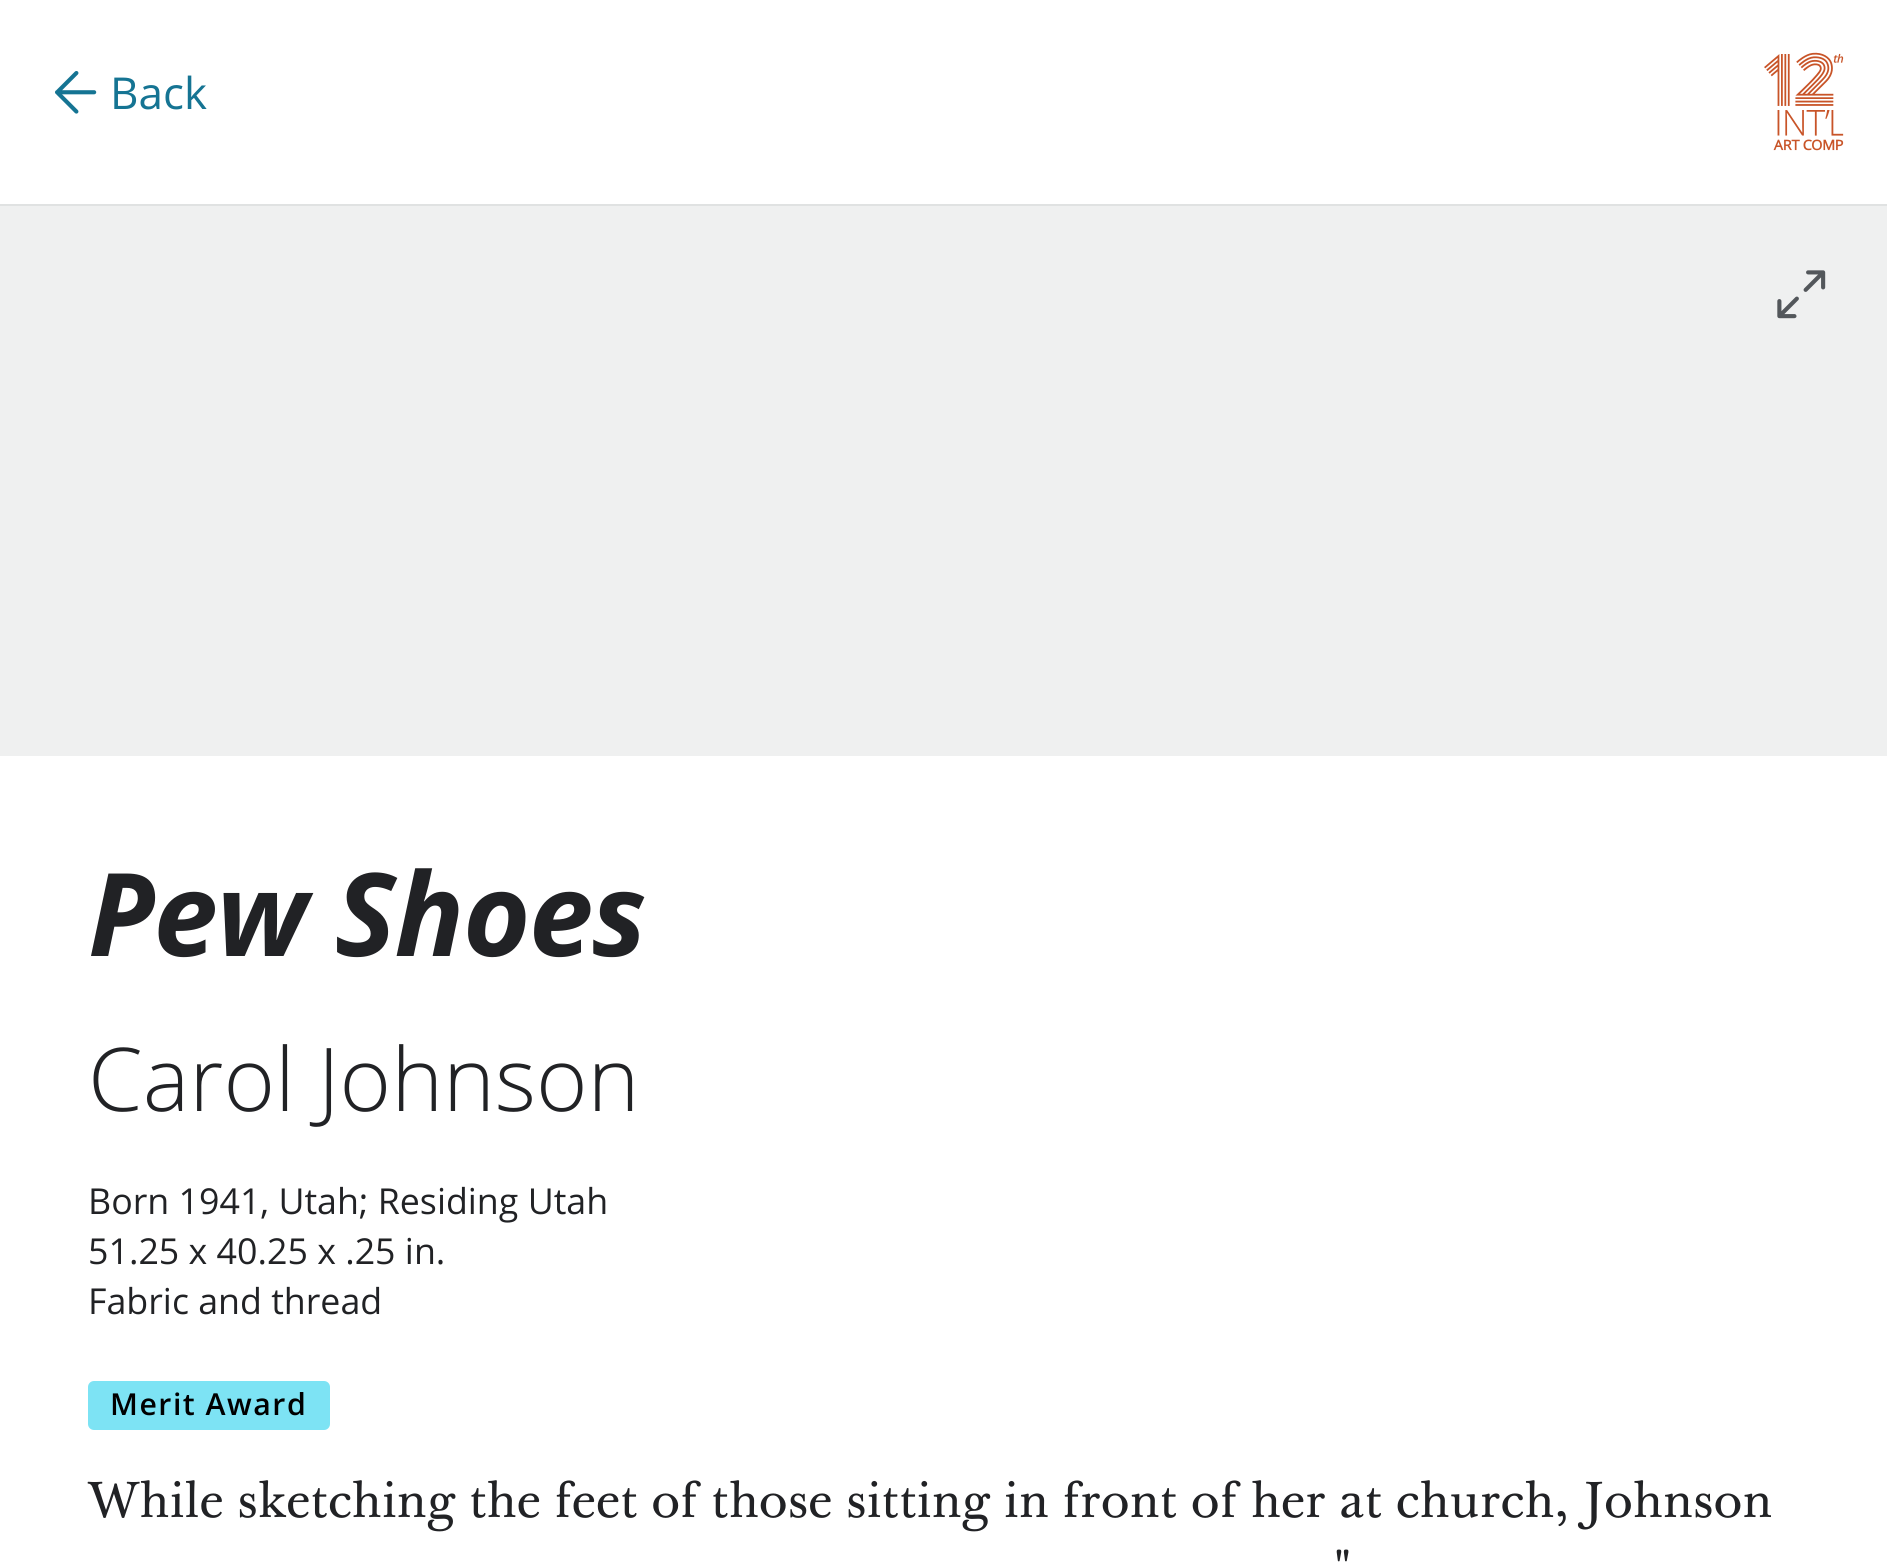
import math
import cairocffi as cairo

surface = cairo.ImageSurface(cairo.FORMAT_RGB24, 1887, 1566)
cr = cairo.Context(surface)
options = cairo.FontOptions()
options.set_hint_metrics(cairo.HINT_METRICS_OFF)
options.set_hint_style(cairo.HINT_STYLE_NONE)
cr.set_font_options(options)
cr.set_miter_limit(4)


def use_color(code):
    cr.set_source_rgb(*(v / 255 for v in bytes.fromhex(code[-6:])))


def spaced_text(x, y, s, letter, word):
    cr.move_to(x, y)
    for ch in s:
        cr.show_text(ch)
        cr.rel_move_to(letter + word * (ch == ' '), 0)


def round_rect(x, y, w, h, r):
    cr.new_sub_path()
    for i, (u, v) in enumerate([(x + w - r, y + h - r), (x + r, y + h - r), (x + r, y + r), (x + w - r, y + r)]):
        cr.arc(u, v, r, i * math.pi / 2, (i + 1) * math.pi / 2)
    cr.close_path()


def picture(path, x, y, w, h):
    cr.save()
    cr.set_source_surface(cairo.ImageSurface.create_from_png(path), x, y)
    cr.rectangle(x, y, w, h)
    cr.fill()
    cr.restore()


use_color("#ffffff")
cr.paint()
use_color("#e0e2e2")
cr.rectangle(0, 204, 1887, 2)
cr.fill()
picture("img1.png", 55, 71, 42, 43)
cr.select_font_face("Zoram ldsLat")
cr.set_font_size(44)
use_color("#157493")
cr.move_to(110, 109)
cr.show_text("Back")
picture("img2.png", 1764, 52, 80, 99)
use_color("#eff0f0")
cr.rectangle(0, 206, 1887, 550)
cr.fill()
picture("img3.png", 1777, 270, 49, 49)
cr.select_font_face("Zoram ldsLat", cairo.FONT_SLANT_ITALIC, cairo.FONT_WEIGHT_BOLD)
cr.set_font_size(115.5)
use_color("#212225")
spaced_text(88, 956, "Pew Shoes", -1.4, 0)
cr.select_font_face("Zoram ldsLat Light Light")
cr.set_font_size(88)
cr.move_to(88, 1111)
cr.show_text("Carol Johnson")
cr.select_font_face("Zoram ldsLat")
cr.set_font_size(35.75)
cr.move_to(88, 1214)
cr.show_text("Born 1941, Utah; Residing Utah")
cr.move_to(88, 1264)
cr.show_text("51.25 x 40.25 x .25 in.")
cr.move_to(88, 1314)
cr.show_text("Fabric and thread")
use_color("#7de3f4")
round_rect(88, 1381, 242, 49, 6)
cr.fill()
cr.select_font_face("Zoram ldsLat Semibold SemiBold")
cr.set_font_size(30.25)
use_color("#000000")
spaced_text(110, 1415, "Merit Award", 1.5, 0)
cr.select_font_face("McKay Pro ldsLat")
cr.set_font_size(49.5)
use_color("#212225")
cr.move_to(88, 1517)
cr.show_text("While sketching the feet of those sitting in front of her at church, Johnson")
cr.move_to(1334, 1586)
cr.show_text("\"")
surface.write_to_png("result.png")
